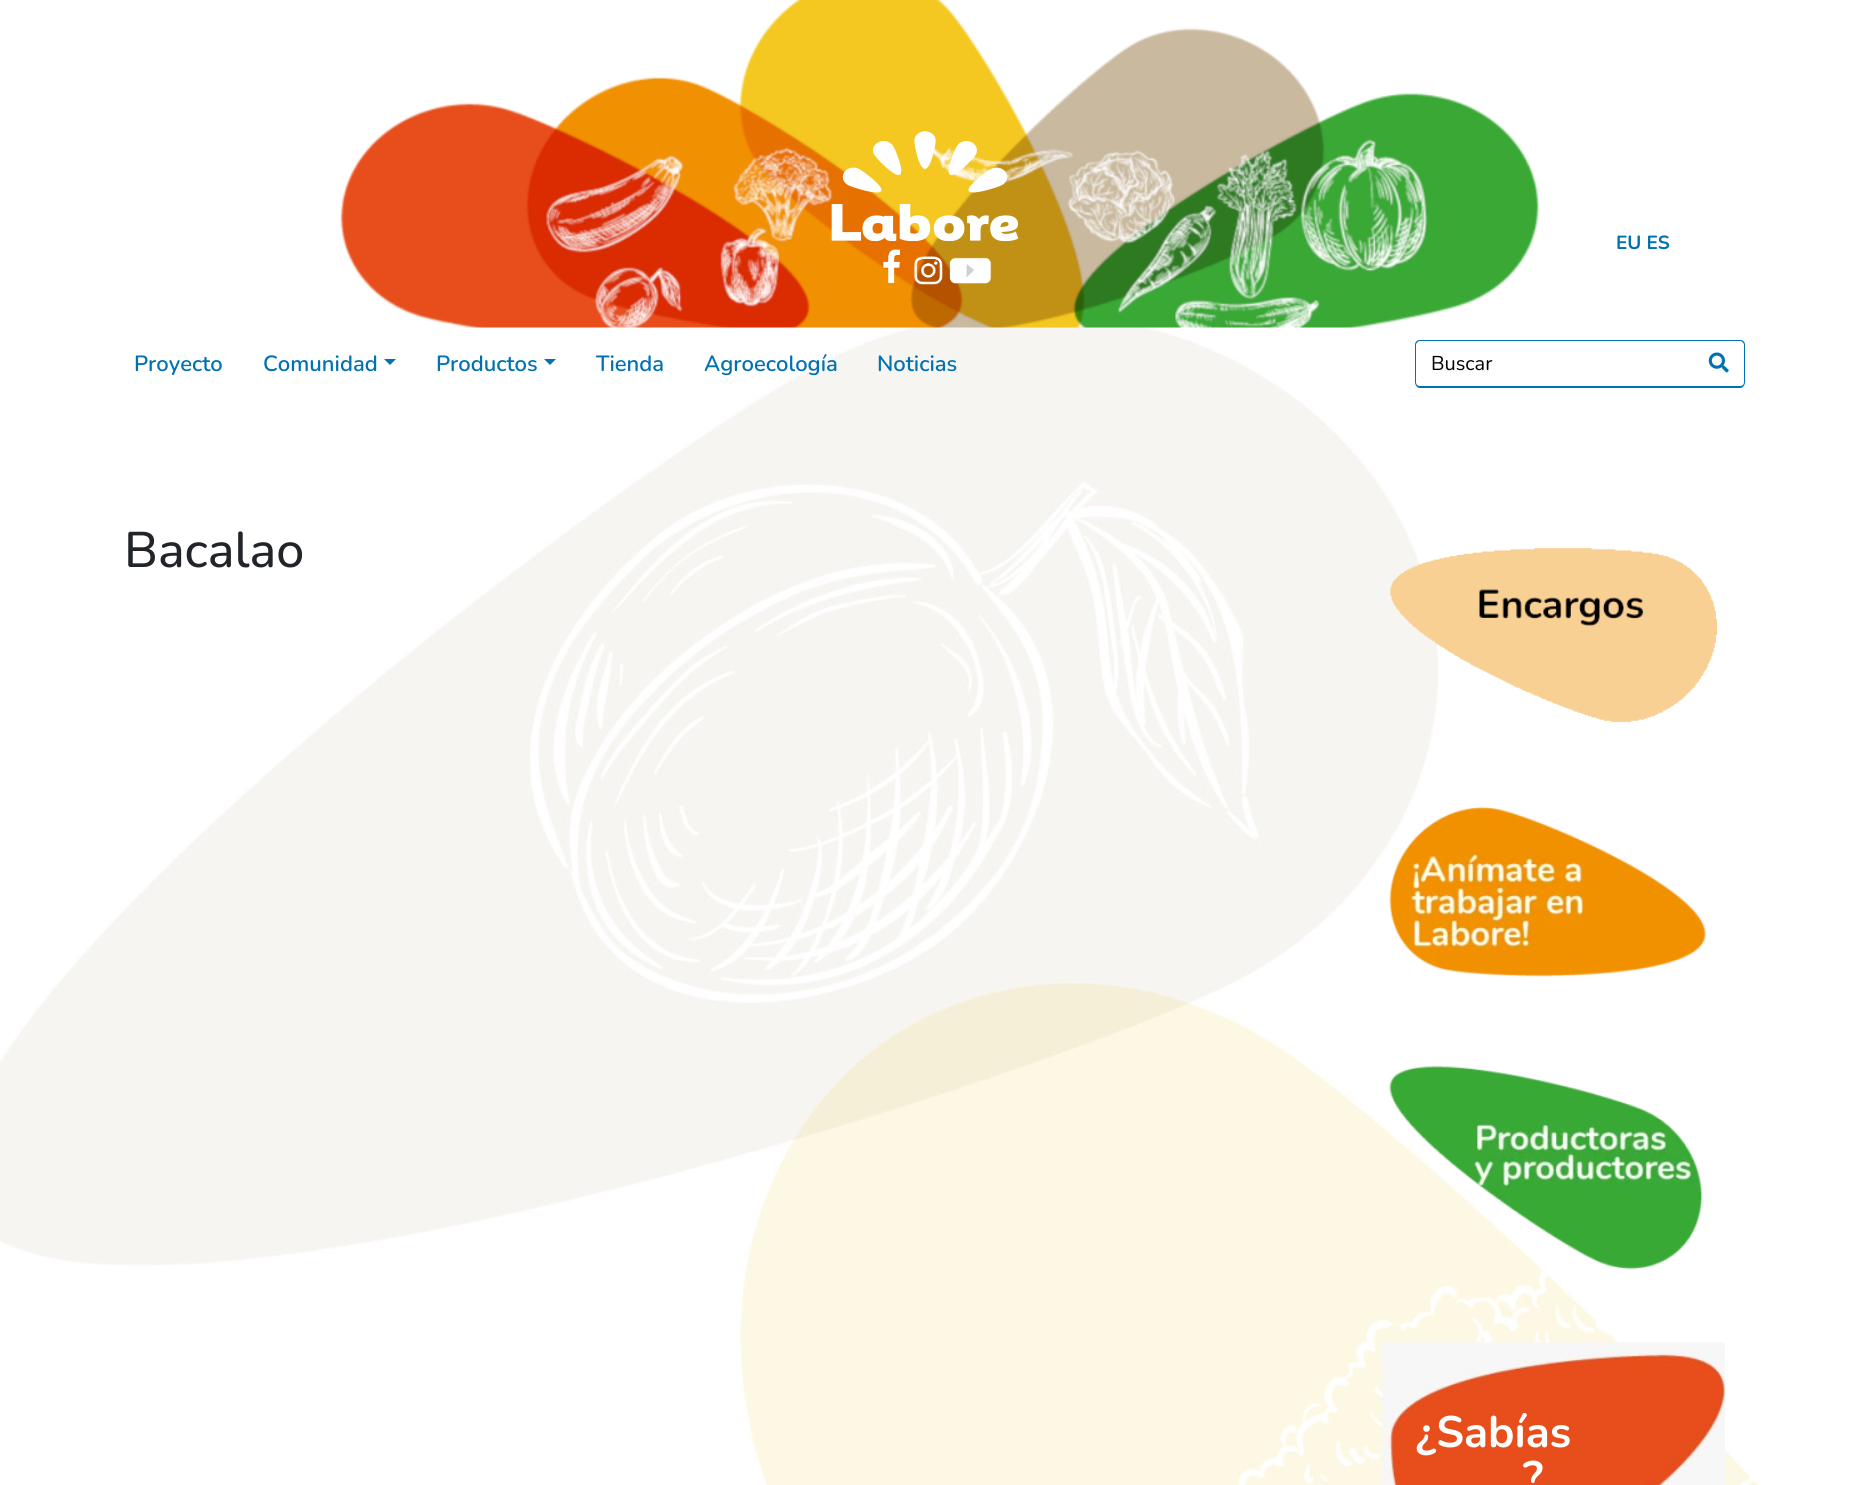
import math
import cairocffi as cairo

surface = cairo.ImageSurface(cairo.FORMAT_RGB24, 1868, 1485)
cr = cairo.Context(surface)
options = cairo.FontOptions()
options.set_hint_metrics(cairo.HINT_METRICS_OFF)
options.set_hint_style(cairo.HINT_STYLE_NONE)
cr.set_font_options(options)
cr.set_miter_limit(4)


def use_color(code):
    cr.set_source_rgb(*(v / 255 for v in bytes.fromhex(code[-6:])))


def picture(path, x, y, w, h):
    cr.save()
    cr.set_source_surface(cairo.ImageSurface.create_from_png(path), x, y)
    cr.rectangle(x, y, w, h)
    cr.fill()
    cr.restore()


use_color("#ffffff")
cr.paint()
picture("img1.png", 0, 312, 1760, 1173)
picture("img2.png", 340, 0, 1199, 328)
picture("img3.png", 831, 131, 188, 110)
cr.select_font_face("Nunito", cairo.FONT_SLANT_NORMAL, cairo.FONT_WEIGHT_BOLD)
cr.set_font_size(19)
use_color("#0072b1")
cr.move_to(1616, 249)
cr.show_text("EU ES")
picture("img4.png", 883, 249, 17, 34)
picture("img5.png", 914, 256, 29, 29)
picture("img6.png", 949, 257, 43, 27)
cr.select_font_face("Nunito SemiBold")
cr.set_font_size(22)
cr.move_to(134, 371)
cr.show_text("Proyecto")
cr.move_to(263, 371)
cr.show_text("Comunidad")
cr.new_path()
cr.move_to(384, 359)
cr.line_to(396, 359)
cr.line_to(390, 365)
cr.close_path()
cr.fill()
cr.move_to(436, 371)
cr.show_text("Productos")
cr.new_path()
cr.move_to(544, 359)
cr.line_to(556, 359)
cr.line_to(550, 365)
cr.close_path()
cr.fill()
cr.move_to(596, 371)
cr.show_text("Tienda")
cr.move_to(704, 371)
cr.show_text("Agroecología")
cr.move_to(877, 371)
cr.show_text("Noticias")
cr.set_fill_rule(cairo.FILL_RULE_EVEN_ODD)
cr.new_path()
cr.move_to(1420, 340)
cr.line_to(1695, 340)
cr.line_to(1695, 388)
cr.line_to(1420, 388)
cr.curve_to(1417, 388, 1415, 385, 1415, 382)
cr.line_to(1415, 345)
cr.curve_to(1415, 342, 1417, 340, 1420, 340)
cr.close_path()
cr.move_to(1420, 341)
cr.line_to(1695, 341)
cr.line_to(1695, 386)
cr.line_to(1420, 386)
cr.curve_to(1418, 386, 1416, 385, 1416, 382)
cr.line_to(1416, 345)
cr.curve_to(1416, 343, 1418, 341, 1420, 341)
cr.close_path()
cr.fill()
cr.select_font_face("Nunito")
cr.set_font_size(20)
use_color("#000000")
cr.move_to(1431, 370)
cr.show_text("Buscar")
use_color("#0072b1")
cr.new_path()
cr.move_to(1694, 340)
cr.line_to(1740, 340)
cr.curve_to(1743, 340, 1745, 342, 1745, 345)
cr.line_to(1745, 382)
cr.curve_to(1745, 385, 1743, 388, 1740, 388)
cr.line_to(1694, 388)
cr.close_path()
cr.move_to(1694, 341)
cr.line_to(1740, 341)
cr.curve_to(1742, 341, 1744, 343, 1744, 345)
cr.line_to(1744, 382)
cr.curve_to(1744, 385, 1742, 386, 1740, 386)
cr.line_to(1694, 386)
cr.close_path()
cr.fill()
picture("img7.png", 1708, 352, 21, 21)
cr.select_font_face("Nunito Medium")
cr.set_font_size(50)
use_color("#212529")
cr.move_to(124, 567)
cr.show_text("Bacalao")
picture("img8.png", 1390, 548, 328, 175)
picture("img9.png", 1389, 806, 317, 171)
picture("img10.png", 1389, 1065, 314, 205)
picture("img11.png", 1382, 1342, 343, 143)
cr.select_font_face("Nunito", cairo.FONT_SLANT_NORMAL, cairo.FONT_WEIGHT_BOLD)
cr.set_font_size(44)
use_color("#ffffff")
cr.move_to(1416, 1447)
cr.show_text("¿Sabías")
cr.move_to(1523, 1492)
cr.show_text("?")
surface.write_to_png("result.png")
